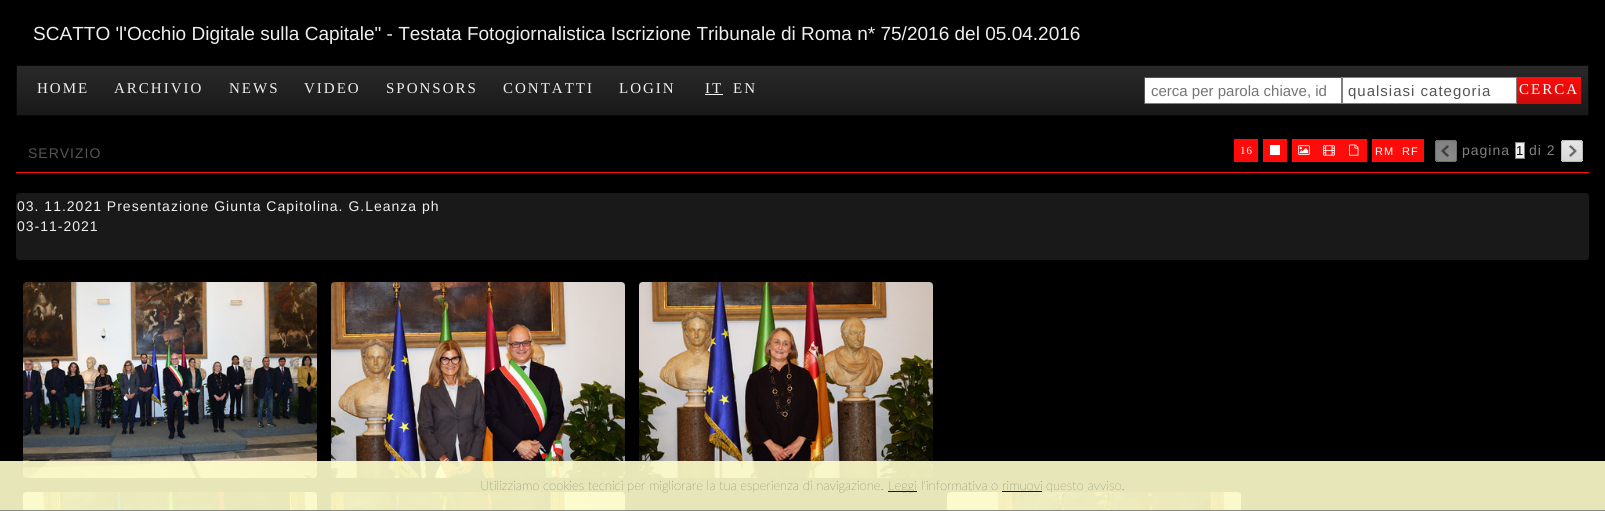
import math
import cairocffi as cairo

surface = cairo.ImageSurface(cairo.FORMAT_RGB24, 1605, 511)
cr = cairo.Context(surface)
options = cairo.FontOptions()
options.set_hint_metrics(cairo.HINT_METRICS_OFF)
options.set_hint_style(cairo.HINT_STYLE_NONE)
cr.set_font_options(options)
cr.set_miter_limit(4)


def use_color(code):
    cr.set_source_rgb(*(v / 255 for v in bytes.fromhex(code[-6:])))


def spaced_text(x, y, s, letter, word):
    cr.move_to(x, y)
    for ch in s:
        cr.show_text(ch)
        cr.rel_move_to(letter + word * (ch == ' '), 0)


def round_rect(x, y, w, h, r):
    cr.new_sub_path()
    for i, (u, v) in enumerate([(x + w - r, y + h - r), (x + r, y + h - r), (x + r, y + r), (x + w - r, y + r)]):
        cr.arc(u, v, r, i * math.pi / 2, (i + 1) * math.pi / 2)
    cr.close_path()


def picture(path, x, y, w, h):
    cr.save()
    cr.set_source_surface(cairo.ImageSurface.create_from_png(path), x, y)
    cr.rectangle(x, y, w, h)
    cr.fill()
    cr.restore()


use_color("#000000")
cr.paint()
cr.select_font_face("Liberation Sans")
cr.set_font_size(19.03)
use_color("#eeeeee")
cr.move_to(33, 40)
cr.show_text("SCATTO 'l'Occhio Digitale sulla Capitale\" - Testata Fotogiornalistica Iscrizione Tribunale di Roma n* 75/2016 del 05.04.2016")
gradient = cairo.LinearGradient(803, 66, 803, 115)
gradient.add_color_stop_rgba(0, 0.161, 0.161, 0.161, 1)
gradient.add_color_stop_rgba(1, 0.098, 0.098, 0.098, 1)
cr.set_source(gradient)
cr.rectangle(17, 66, 1571, 49)
cr.fill()
cr.rectangle(16.5, 65.5, 1572, 50)
use_color("#090909")
cr.set_line_width(1)
cr.stroke()
cr.select_font_face("Liberation Serif")
cr.set_font_size(15)
use_color("#eeeeee")
spaced_text(37, 93, "HOME", 2, 0)
spaced_text(114, 93, "ARCHIVIO", 2, 0)
spaced_text(229, 93, "NEWS", 2, 0)
spaced_text(304, 93, "VIDEO", 2, 0)
spaced_text(386, 93, "SPONSORS", 2, 0)
spaced_text(503, 93, "CONTATTI", 2, 0)
spaced_text(619, 93, "LOGIN", 2, 0)
spaced_text(705, 93, "IT", 2, 0)
cr.rectangle(705, 94, 18, 1)
cr.fill()
spaced_text(733, 93, "EN", 2, 0)
use_color("#ffffff")
cr.rectangle(1145, 78, 196, 25)
cr.fill()
use_color("#555555")
cr.rectangle(1144, 77, 198, 1)
cr.fill()
use_color("#808080")
cr.rectangle(1341, 77, 1, 27)
cr.fill()
cr.rectangle(1144, 103, 198, 1)
cr.fill()
use_color("#555555")
cr.rectangle(1144, 77, 1, 27)
cr.fill()
cr.select_font_face("Liberation Sans")
use_color("#757575")
cr.move_to(1151, 96)
cr.show_text("cerca per parola chiave, id")
use_color("#ffffff")
cr.rectangle(1342.5, 77.5, 174, 26)
cr.fill_preserve()
use_color("#808080")
cr.stroke()
use_color("#555555")
spaced_text(1348, 96, "qualsiasi categoria", 1, 0)
gradient = cairo.LinearGradient(1549, 77, 1549, 104)
gradient.add_color_stop_rgba(0, 1, 0.047, 0.039, 1)
gradient.add_color_stop_rgba(1, 0.8, 0.047, 0.039, 1)
cr.set_source(gradient)
cr.rectangle(1517, 77, 64, 27)
cr.fill()
cr.select_font_face("Liberation Serif")
use_color("#ffffff")
spaced_text(1519, 94, "CERCA", 2, 0)
use_color("#ff0c0a")
cr.rectangle(16, 172, 1573, 1)
cr.fill()
cr.select_font_face("Liberation Sans")
cr.set_font_size(14)
use_color("#555555")
spaced_text(28, 158, "SERVIZIO", 1, 0)
use_color("#ff0c0a")
cr.rectangle(1234, 139, 24, 23)
cr.fill()
cr.select_font_face("Liberation Serif")
cr.set_font_size(11)
use_color("#ffffff")
spaced_text(1240, 154, "16", 1, 0)
use_color("#ff0c0a")
cr.rectangle(1263, 139, 24, 23)
cr.fill()
use_color("#ffffff")
cr.rectangle(1270, 145, 10, 10)
cr.fill()
use_color("#ff0c0a")
cr.rectangle(1292, 139, 75, 23)
cr.fill()
picture("img1.png", 1298, 145, 12, 10)
picture("img2.png", 1323, 145, 12, 11)
picture("img3.png", 1349, 144, 10, 12)
cr.rectangle(1372, 139, 52, 23)
cr.fill()
cr.select_font_face("Liberation Sans")
use_color("#ffffff")
spaced_text(1375, 155, "RM", 1, 0)
spaced_text(1402, 155, "RF", 1, 0)
picture("img4.png", 1435, 140, 22, 22)
cr.set_font_size(14)
use_color("#808080")
spaced_text(1462, 155, "pagina", 1, 0)
use_color("#efefef")
cr.rectangle(1515.5, 142.5, 9, 16)
cr.fill_preserve()
use_color("#808080")
cr.stroke()
cr.set_font_size(13)
use_color("#000000")
cr.move_to(1516, 155)
cr.show_text("1")
cr.set_font_size(14)
use_color("#808080")
spaced_text(1529, 155, "di 2", 1, 0)
picture("img5.png", 1561, 140, 22, 22)
use_color("#191919")
round_rect(16.5, 193.5, 1572, 66, 2.5)
cr.fill_preserve()
cr.stroke()
use_color("#eeeeee")
spaced_text(17, 211, "03. 11.2021 Presentazione Giunta Capitolina. G.Leanza ph", 1, 0)
spaced_text(17, 231, "03-11-2021", 1, 0)
picture("img6.png", 23, 282, 294, 196)
picture("img7.png", 331, 282, 294, 196)
picture("img8.png", 639, 282, 294, 196)
picture("img9.png", 23, 492, 294, 19)
picture("img10.png", 331, 492, 294, 19)
picture("img11.png", 947, 492, 294, 19)
cr.set_source_rgba(1, 1, 0.8, 0.9)
cr.rectangle(0, 461, 1605, 50)
cr.fill()
cr.set_source_rgba(0.502, 0.502, 0.502, 0.9)
cr.rectangle(0, 510, 1605, 1)
cr.fill()
cr.select_font_face("Lato ExtraLight")
cr.set_font_size(13)
use_color("#171717")
cr.move_to(480, 490)
cr.show_text("Utilizziamo cookies tecnici per migliorare la tua esperienza di navigazione.")
cr.rectangle(888, 491, 29, 1)
cr.fill()
cr.move_to(888, 490)
cr.show_text("Leggi l'informativa o rimuovi")
use_color("#2e2e2a")
cr.move_to(1046, 490)
cr.show_text("questo avviso.")
use_color("#171717")
cr.rectangle(1002, 491, 40, 1)
cr.fill()
surface.write_to_png("result.png")
